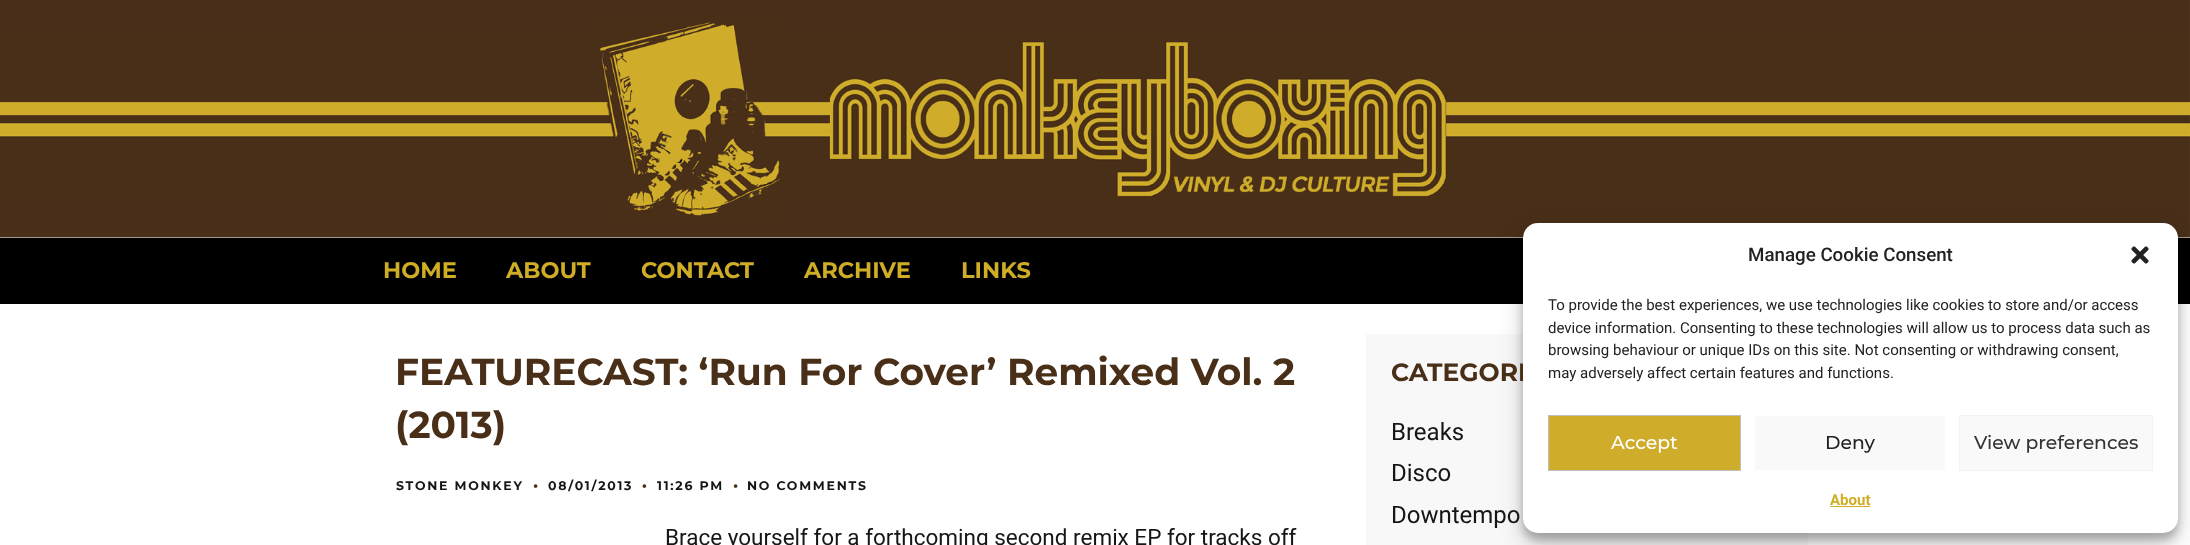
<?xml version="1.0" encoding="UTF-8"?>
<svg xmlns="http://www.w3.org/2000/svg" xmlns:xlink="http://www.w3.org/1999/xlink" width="2190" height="545">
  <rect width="100%" height="100%" fill="#ffffff" />
  <image x="0" y="0" width="2190" height="238" xlink:href="image1.png" />
  <rect y="238" width="2190" height="66" fill="#000000" />
  <rect x="1366" y="334" width="442" height="211" fill="#f8f8f8" />
  <rect x="1523" y="230" width="655" height="310" rx="15" fill="#000000" fill-opacity="0.23" filter="blur(4px)" />
  <rect x="1523" y="235" width="655" height="310" rx="15" fill="#000000" fill-opacity="0.19" filter="blur(12.5px)" />
  <image x="533" y="484" width="5" height="4" xlink:href="image3.png" />
  <image x="642" y="484" width="5" height="4" xlink:href="image4.png" />
  <image x="733" y="484" width="5" height="4" xlink:href="image3.png" />
  <text x="383" y="278" style="font-family: Montserrat; font-size: 22.5px; font-weight: bold; fill: #cfad25">HOME</text>
  <text x="506" y="278" style="font-family: Montserrat; font-size: 22.5px; font-weight: bold; fill: #cfad25">ABOUT</text>
  <text x="641" y="278" style="font-family: Montserrat; font-size: 22.5px; font-weight: bold; fill: #cfad25">CONTACT</text>
  <text x="804" y="278" style="font-family: Montserrat; font-size: 22.5px; font-weight: bold; fill: #cfad25">ARCHIVE</text>
  <text x="961" y="278" style="font-family: Montserrat; font-size: 22.5px; font-weight: bold; fill: #cfad25">LINKS</text>
  <text x="395" y="385" style="font-family: Montserrat; font-size: 37.5px; font-weight: bold; fill: #492f18">FEATURECAST: ‘Run For Cover’ Remixed Vol. 2</text>
  <text x="395" y="438" style="font-family: Montserrat; font-size: 37.5px; font-weight: bold; fill: #492f18">(2013)</text>
  <text x="396" y="490" style="font-family: Montserrat; font-size: 12.5px; font-weight: bold; letter-spacing: 1.75px; fill: #161616">STONE MONKEY</text>
  <text x="548" y="490" style="font-family: Montserrat; font-size: 12.5px; font-weight: bold; letter-spacing: 1.75px; fill: #161616">08/01/2013</text>
  <text x="657" y="490" style="font-family: Montserrat; font-size: 12.5px; font-weight: bold; letter-spacing: 1.75px; fill: #161616">11:26 PM</text>
  <text x="747" y="490" style="font-family: Montserrat; font-size: 12.5px; font-weight: bold; letter-spacing: 1.75px; fill: #161616">NO COMMENTS</text>
  <text x="665" y="545" style="font-family: Roboto; font-size: 22.5px; fill: #161616">Brace yourself for a forthcoming second remix EP for tracks off</text>
  <text x="1391" y="381" style="font-family: Montserrat; font-size: 25px; font-weight: bold; fill: #492f18">CATEGORI</text>
  <rect x="1523" y="223" width="655" height="310" rx="15" fill="#ffffff" />
  <text x="1548" y="378" style="font-family: Roboto; font-size: 15px; fill: #222222">may adversely affect certain features and functions.</text>
  <text x="1548" y="355" style="font-family: Roboto; font-size: 15px; fill: #222222">browsing behaviour or unique IDs on this site. Not consenting or withdrawing consent,</text>
  <text x="1548" y="333" style="font-family: Roboto; font-size: 15px; fill: #222222">device information. Consenting to these technologies will allow us to process data such as</text>
  <text x="1548" y="310" style="font-family: Roboto; font-size: 15px; fill: #222222">To provide the best experiences, we use technologies like cookies to store and/or access</text>
  <image x="2131" y="246" width="18" height="18" xlink:href="image2.png" />
  <text x="1830" y="505" style="font-family: Roboto; font-size: 15px; font-weight: bold; fill: #cfad25">About</text>
  <rect x="1830" y="506" width="40" height="1" fill="#cfac2a" />
  <rect x="1959.5" y="415.5" width="193" height="55" fill="#f9f9f9" stroke="#f2f2f2" />
  <text x="1974" y="449" style="font-family: Montserrat; font-size: 18.75px; font-weight: 500; fill: #333333">View preferences</text>
  <rect x="1755" y="416" width="190" height="54" fill="#f9f9f9" />
  <text x="1825" y="449" style="font-family: Montserrat; font-size: 18.75px; font-weight: 500; fill: #222222">Deny</text>
  <rect x="1548.5" y="415.5" width="192" height="55" fill="#cfac2a" stroke="#bfbfbf" />
  <text x="1611" y="449" style="font-family: Montserrat; font-size: 18.75px; font-weight: 500; fill: #ffffff">Accept</text>
  <text x="1748" y="261" style="font-family: Roboto; font-size: 18.75px; font-weight: 500; fill: #222222">Manage Cookie Consent</text>
  <text x="1391" y="440" style="font-family: Roboto; font-size: 24px; fill: #161616">Breaks</text>
  <text x="1391" y="481" style="font-family: Roboto; font-size: 24px; fill: #161616">Disco</text>
  <text x="1391" y="523" style="font-family: Roboto; font-size: 24px; fill: #161616">Downtempo</text>
</svg>
